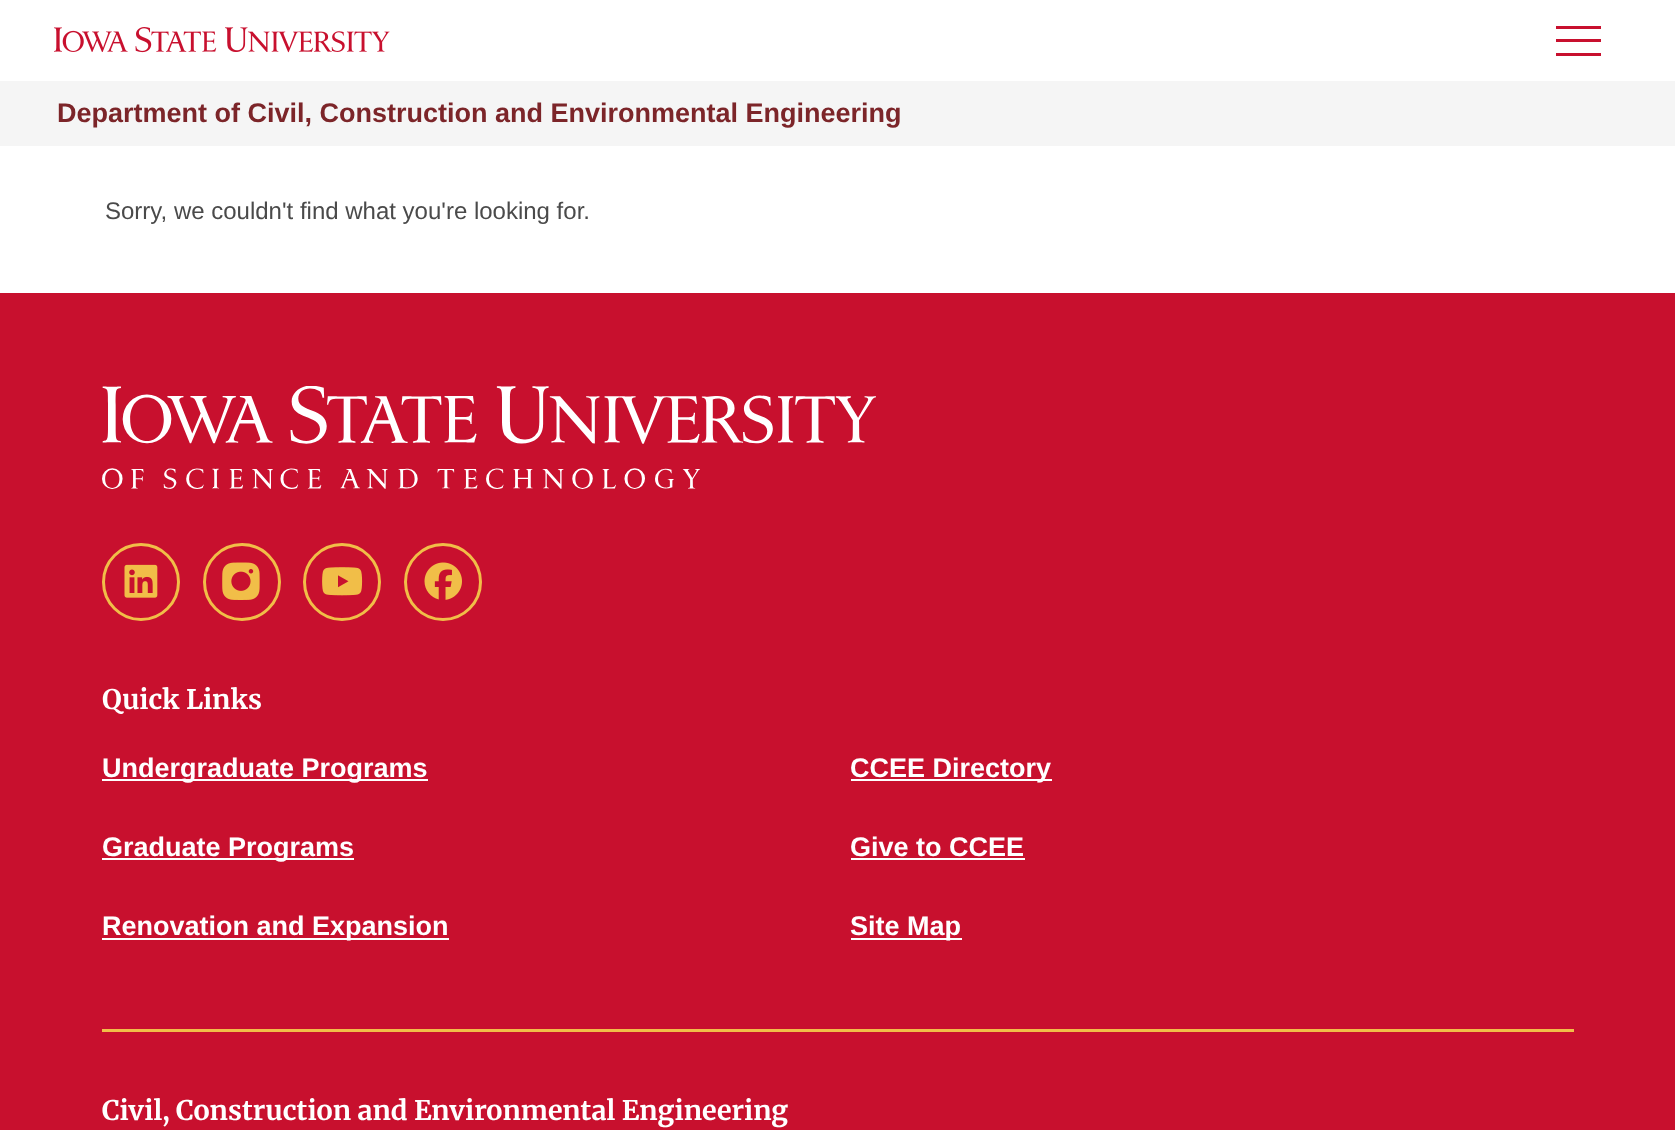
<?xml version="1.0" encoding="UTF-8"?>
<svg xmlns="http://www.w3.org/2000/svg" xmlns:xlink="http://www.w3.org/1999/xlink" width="1675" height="1130">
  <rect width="100%" height="100%" fill="#ffffff" />
  <rect x="1556" y="26" width="45" height="3" fill="#c8102e" />
  <rect x="1556" y="39" width="45" height="3" fill="#c8102e" />
  <rect x="1556" y="53" width="45" height="3" fill="#c8102e" />
  <image x="54" y="27" width="336" height="26" xlink:href="image1.png" />
  <rect y="81" width="1675" height="65" fill="#f5f5f5" />
  <rect y="293" width="1675" height="837" fill="#c8102e" />
  <image x="102" y="386" width="774" height="103" xlink:href="image2.png" />
  <circle cx="141" cy="582" r="37.5" fill="none" stroke="#f1be48" stroke-width="3" />
  <image x="124" y="564" width="34" height="34" xlink:href="image3.png" />
  <circle cx="242" cy="582" r="37.5" fill="none" stroke="#f1be48" stroke-width="3" />
  <image x="222" y="562" width="38" height="38" xlink:href="image4.png" />
  <circle cx="342" cy="582" r="37.5" fill="none" stroke="#f1be48" stroke-width="3" />
  <image x="322" y="567" width="41" height="29" xlink:href="image5.png" />
  <circle cx="443" cy="582" r="37.5" fill="none" stroke="#f1be48" stroke-width="3" />
  <image x="424" y="562" width="38" height="38" xlink:href="image6.png" />
  <rect x="102" y="1029" width="1472" height="3" fill="#f1be48" />
  <rect x="102" y="779" width="326" height="2" fill="#ffffff" />
  <rect x="851" y="779" width="201" height="2" fill="#ffffff" />
  <rect x="102" y="858" width="252" height="2" fill="#ffffff" />
  <rect x="851" y="858" width="174" height="2" fill="#ffffff" />
  <rect x="102" y="938" width="347" height="2" fill="#ffffff" />
  <rect x="851" y="938" width="111" height="2" fill="#ffffff" />
  <text x="57" y="122" style="font-family: Liberation Sans; font-size: 27px; font-weight: bold; fill: #7c2529">Department of Civil, Construction and Environmental Engineering</text>
  <text x="105" y="219" style="font-family: Liberation Sans; font-size: 24px; fill: #4a4a4a">Sorry, we couldn't find what you're looking for.</text>
  <text x="102" y="709" style="font-family: Merriweather; font-size: 27px; font-weight: bold; fill: #ffffff">Quick Links</text>
  <text x="102" y="777" style="font-family: Liberation Sans; font-size: 27px; font-weight: bold; fill: #ffffff">Undergraduate Programs</text>
  <text x="850" y="777" style="font-family: Liberation Sans; font-size: 27px; font-weight: bold; fill: #ffffff">CCEE Directory</text>
  <text x="102" y="856" style="font-family: Liberation Sans; font-size: 27px; font-weight: bold; fill: #ffffff">Graduate Programs</text>
  <text x="850" y="856" style="font-family: Liberation Sans; font-size: 27px; font-weight: bold; fill: #ffffff">Give to CCEE</text>
  <text x="102" y="935" style="font-family: Liberation Sans; font-size: 27px; font-weight: bold; fill: #ffffff">Renovation and Expansion</text>
  <text x="850" y="935" style="font-family: Liberation Sans; font-size: 27px; font-weight: bold; fill: #ffffff">Site Map</text>
  <text x="102" y="1120" style="font-family: Merriweather; font-size: 27px; font-weight: bold; fill: #ffffff">Civil, Construction and Environmental Engineering</text>
</svg>
